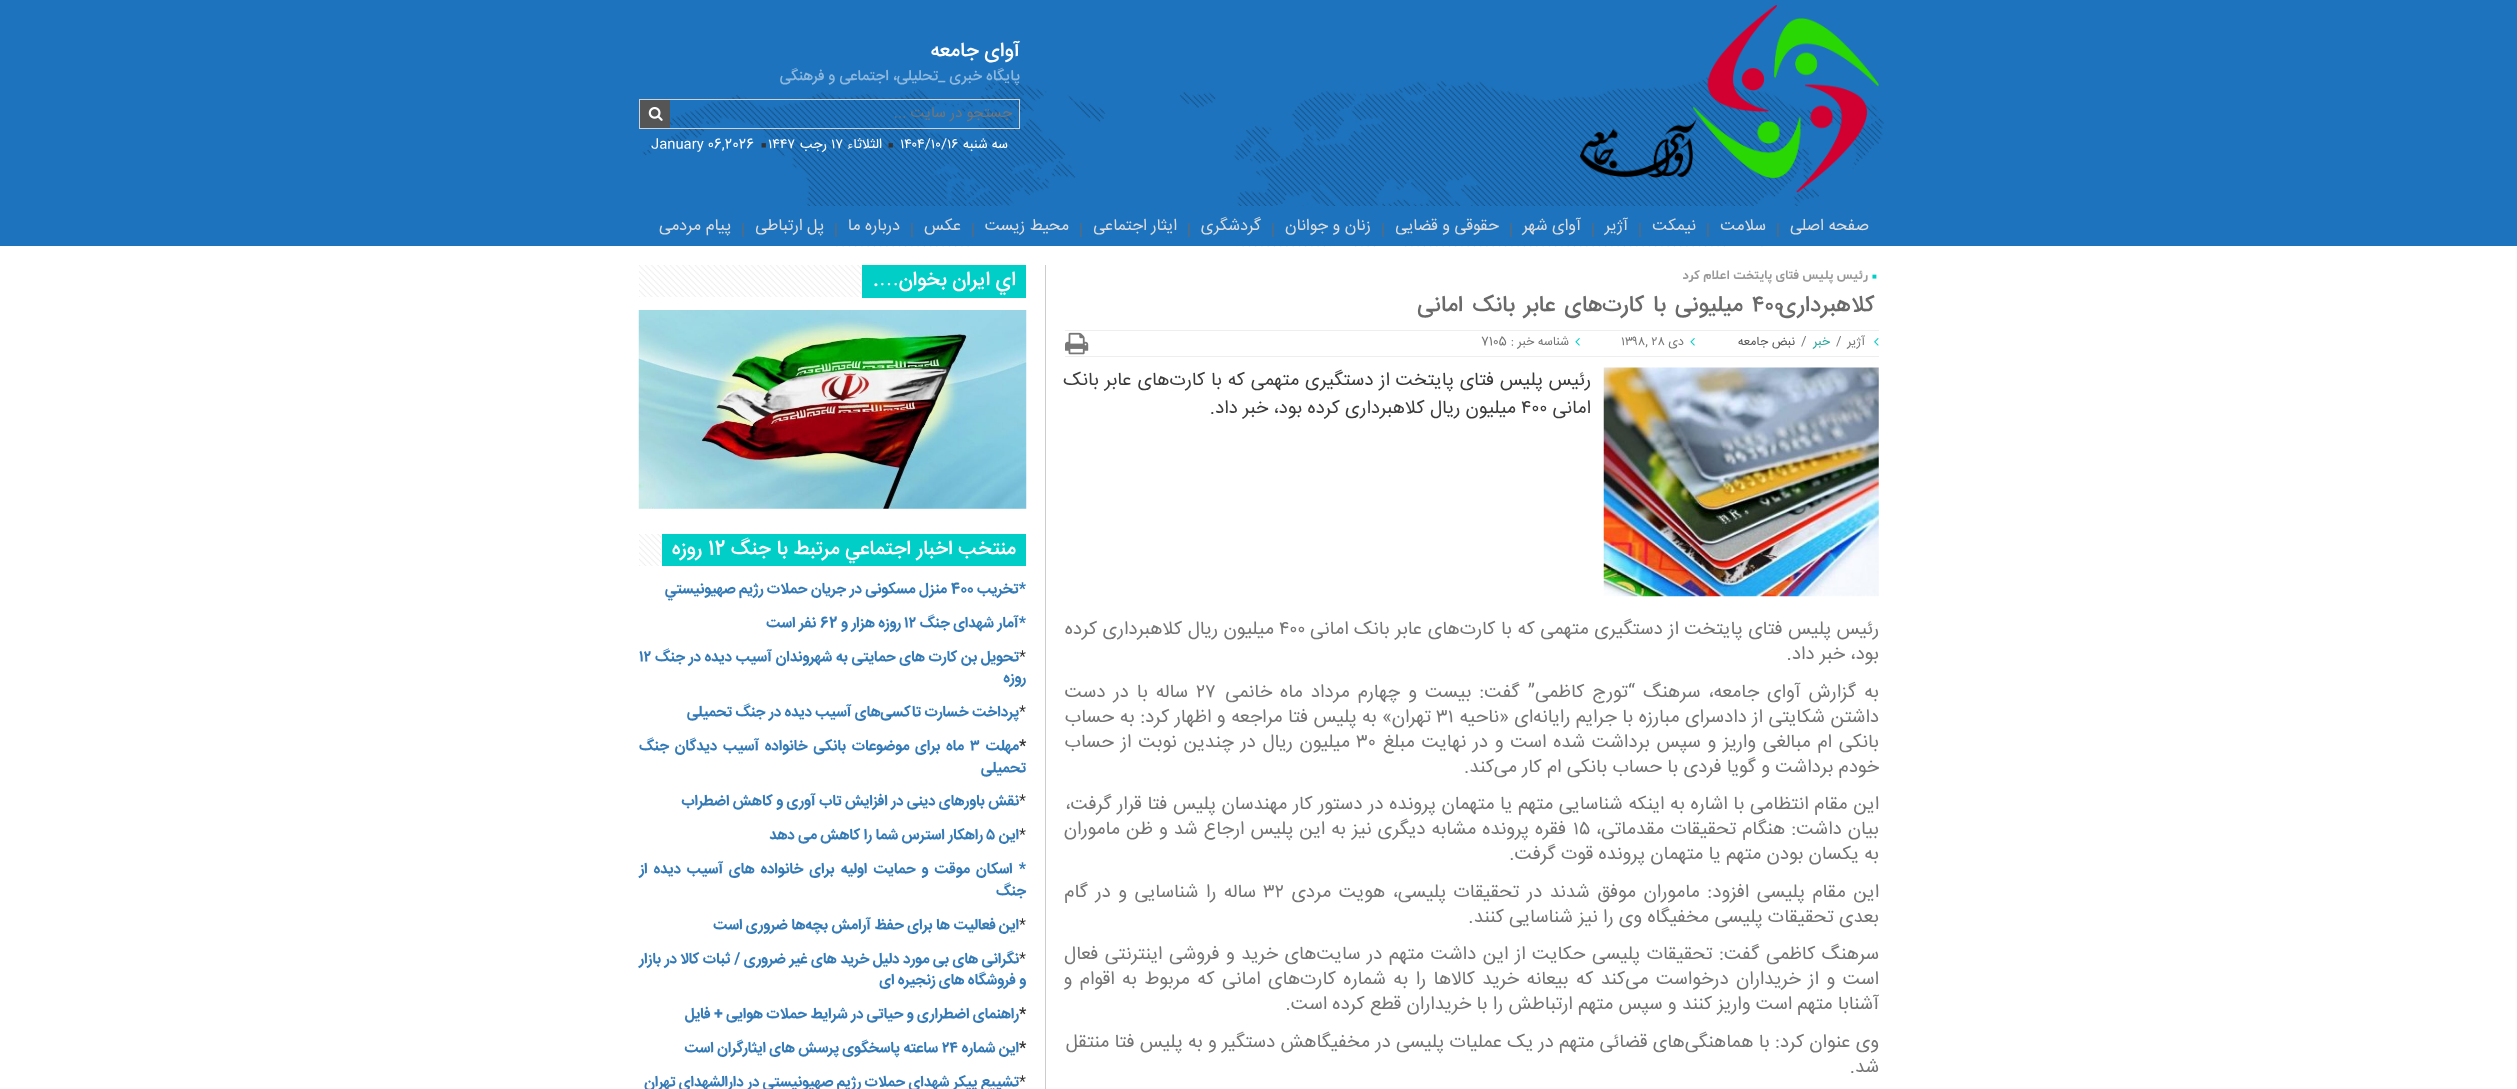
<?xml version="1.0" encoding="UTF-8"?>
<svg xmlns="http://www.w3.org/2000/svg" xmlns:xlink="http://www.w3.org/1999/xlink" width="2517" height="1089">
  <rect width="100%" height="100%" fill="#ffffff" />
  <rect width="2517" height="206" fill="#1e73be" />
  <image x="642" y="77" width="1242" height="170" xlink:href="image1.png" />
  <image x="1580" y="5" width="299" height="188" xlink:href="image2.png" />
  <rect x="639.5" y="99.5" width="380" height="29" fill="none" stroke="#d1d1d1" />
  <rect x="640" y="100" width="30" height="28" fill="#555555" />
  <image x="648" y="107" width="15" height="14" xlink:href="image3.png" />
  <rect y="206" width="2517" height="40" fill="#1e73be" />
  <rect x="1065" y="330" width="814" height="1" fill="#eeeeee" />
  <rect x="1065" y="356" width="814" height="1" fill="#eeeeee" />
  <image x="1874" y="338" width="5" height="8" xlink:href="image4.png" />
  <image x="1690" y="338" width="5" height="8" xlink:href="image5.png" />
  <image x="1575" y="338" width="5" height="8" xlink:href="image5.png" />
  <image x="1065" y="332" width="24" height="23" xlink:href="image6.png" />
  <image x="1603" y="367" width="276" height="230" xlink:href="image7.png" />
  <rect x="1045" y="265" width="1" height="824" fill="#cccccc" />
  <image x="639" y="265" width="222" height="32" xlink:href="image8.png" />
  <rect x="862" y="265" width="164" height="33" fill="#00cec7" />
  <image x="638" y="310" width="389" height="199" xlink:href="image9.png" />
  <image x="639" y="534" width="22" height="32" xlink:href="image10.png" />
  <rect x="662" y="534" width="364" height="32" fill="#00cec7" />
  <text x="1020" y="56" style="font-family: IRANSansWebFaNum; font-size: 20px; font-weight: 500; direction: rtl; fill: #ffffff">آوای جامعه</text>
  <text x="1020" y="80" style="font-family: IRANSansWebFaNum; font-size: 15px; font-weight: 500; direction: rtl; fill: #8eb9de">پایگاه خبری _تحلیلی، اجتماعی و فرهنگی</text>
  <text x="1012" y="117" style="font-family: IRANSansWebFaNum; font-size: 15px; direction: rtl; fill: #757575">جستجو در سایت ...</text>
  <text x="1008" y="148" style="font-family: IRANSansWebFaNum; font-size: 13.75px; direction: rtl; fill: #ffffff">سه شنبه</text>
  <text x="900" y="148" style="font-family: IRANSansWebFaNum; font-size: 13.75px; fill: #ffffff">۱۴۰۴/۱۰/۱۶</text>
  <text x="888" y="148" style="font-family: Liberation Serif; font-size: 9px; fill: #333333">■</text>
  <text x="882" y="148" style="font-family: IRANSansWebFaNum; font-size: 13.75px; direction: rtl; fill: #ffffff">الثلاثاء</text>
  <text x="831" y="148" style="font-family: IRANSansWebFaNum; font-size: 13.75px; fill: #ffffff">۱۷</text>
  <text x="827" y="148" style="font-family: IRANSansWebFaNum; font-size: 13.75px; direction: rtl; fill: #ffffff">رجب</text>
  <text x="768" y="148" style="font-family: IRANSansWebFaNum; font-size: 13.75px; fill: #ffffff">۱۴۴۷</text>
  <text x="761" y="148" style="font-family: Liberation Serif; font-size: 9px; fill: #333333">■</text>
  <text x="651" y="148" style="font-family: IRANSansWebFaNum; font-size: 13.75px; fill: #ffffff">January 06,2026</text>
  <text x="1869" y="230" style="font-family: IRANSansWebFaNum; font-size: 16.25px; direction: rtl; fill: #dddddd">صفحه اصلی</text>
  <text x="1776" y="234" style="font-family: IRANSansWebFaNum; font-size: 15px; fill: #6a6a6a">|</text>
  <text x="1766" y="230" style="font-family: IRANSansWebFaNum; font-size: 16.25px; direction: rtl; fill: #dddddd">سلامت</text>
  <text x="1706" y="234" style="font-family: IRANSansWebFaNum; font-size: 15px; fill: #6a6a6a">|</text>
  <text x="1696" y="230" style="font-family: IRANSansWebFaNum; font-size: 16.25px; direction: rtl; fill: #dddddd">نیمکت</text>
  <text x="1638" y="234" style="font-family: IRANSansWebFaNum; font-size: 15px; fill: #6a6a6a">|</text>
  <text x="1628" y="230" style="font-family: IRANSansWebFaNum; font-size: 16.25px; direction: rtl; fill: #dddddd">آژیر</text>
  <text x="1591" y="234" style="font-family: IRANSansWebFaNum; font-size: 15px; fill: #6a6a6a">|</text>
  <text x="1581" y="230" style="font-family: IRANSansWebFaNum; font-size: 16.25px; direction: rtl; fill: #dddddd">آوای شهر</text>
  <text x="1509" y="234" style="font-family: IRANSansWebFaNum; font-size: 15px; fill: #6a6a6a">|</text>
  <text x="1499" y="230" style="font-family: IRANSansWebFaNum; font-size: 16.25px; direction: rtl; fill: #dddddd">حقوقی و قضایی</text>
  <text x="1381" y="234" style="font-family: IRANSansWebFaNum; font-size: 15px; fill: #6a6a6a">|</text>
  <text x="1371" y="230" style="font-family: IRANSansWebFaNum; font-size: 16.25px; direction: rtl; fill: #dddddd">زنان و جوانان</text>
  <text x="1271" y="234" style="font-family: IRANSansWebFaNum; font-size: 15px; fill: #6a6a6a">|</text>
  <text x="1261" y="230" style="font-family: IRANSansWebFaNum; font-size: 16.25px; direction: rtl; fill: #dddddd">گردشگری</text>
  <text x="1187" y="234" style="font-family: IRANSansWebFaNum; font-size: 15px; fill: #6a6a6a">|</text>
  <text x="1177" y="230" style="font-family: IRANSansWebFaNum; font-size: 16.25px; direction: rtl; fill: #dddddd">ایثار اجتماعی</text>
  <text x="1079" y="234" style="font-family: IRANSansWebFaNum; font-size: 15px; fill: #6a6a6a">|</text>
  <text x="1069" y="230" style="font-family: IRANSansWebFaNum; font-size: 16.25px; direction: rtl; fill: #dddddd">محیط زیست</text>
  <text x="971" y="234" style="font-family: IRANSansWebFaNum; font-size: 15px; fill: #6a6a6a">|</text>
  <text x="961" y="230" style="font-family: IRANSansWebFaNum; font-size: 16.25px; direction: rtl; fill: #dddddd">عکس</text>
  <text x="910" y="234" style="font-family: IRANSansWebFaNum; font-size: 15px; fill: #6a6a6a">|</text>
  <text x="900" y="230" style="font-family: IRANSansWebFaNum; font-size: 16.25px; direction: rtl; fill: #dddddd">درباره ما</text>
  <text x="834" y="234" style="font-family: IRANSansWebFaNum; font-size: 15px; fill: #6a6a6a">|</text>
  <text x="824" y="230" style="font-family: IRANSansWebFaNum; font-size: 16.25px; direction: rtl; fill: #dddddd">پل ارتباطی</text>
  <text x="741" y="234" style="font-family: IRANSansWebFaNum; font-size: 15px; fill: #6a6a6a">|</text>
  <text x="731" y="230" style="font-family: IRANSansWebFaNum; font-size: 16.25px; direction: rtl; fill: #dddddd">پیام مردمی</text>
  <text x="1872" y="279" style="font-family: Liberation Serif; font-size: 8px; fill: #00cec7">■</text>
  <text x="1868" y="279" style="font-family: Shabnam; font-size: 12.5px; font-weight: bold; direction: rtl; fill: #999999">رئیس پلیس فتای پایتخت اعلام کرد</text>
  <text x="1874" y="311" style="font-family: IRANSansWebFaNum; font-size: 22.5px; font-weight: 500; letter-spacing: -0.5px; direction: rtl; fill: #6a6a6a">کلاهبرداری</text>
  <text x="1752" y="311" style="font-family: IRANSansWebFaNum; font-size: 22.5px; font-weight: 500; letter-spacing: -0.5px; fill: #6a6a6a">۴۰۰</text>
  <text x="1743" y="311" word-spacing="3" style="font-family: IRANSansWebFaNum; font-size: 22.5px; font-weight: 500; letter-spacing: -0.5px; direction: rtl; fill: #6a6a6a">میلیونی با کارت‌های عابر بانک امانی</text>
  <text x="1865" y="345" style="font-family: IRANSansWebFaNum; font-size: 12.5px; direction: rtl; fill: #757575">آژیر</text>
  <text x="1836" y="345" style="font-family: IRANSansWebFaNum; font-size: 12.5px; fill: #757575">/</text>
  <text x="1830" y="345" style="font-family: IRANSansWebFaNum; font-size: 12.5px; direction: rtl; fill: #26a69a">خبر</text>
  <text x="1801" y="345" style="font-family: IRANSansWebFaNum; font-size: 12.5px; fill: #757575">/</text>
  <text x="1795" y="345" style="font-family: IRANSansWebFaNum; font-size: 12.5px; direction: rtl; fill: #555555">نبض جامعه</text>
  <text x="1684" y="345" style="font-family: IRANSansWebFaNum; font-size: 12.5px; direction: rtl; fill: #757575">دی</text>
  <text x="1621" y="345" style="font-family: IRANSansWebFaNum; font-size: 12.5px; fill: #757575">۱۳۹۸, ۲۸</text>
  <text x="1569" y="345" style="font-family: IRANSansWebFaNum; font-size: 12.5px; direction: rtl; fill: #757575">شناسه خبر :</text>
  <text x="1481" y="345" style="font-family: IRANSansWebFaNum; font-size: 12.5px; fill: #757575">7105</text>
  <text x="1591" y="385" word-spacing="0.5" style="font-family: IRANSansWebFaNum; font-size: 18.75px; direction: rtl; fill: #3b3b3b">رئیس پلیس فتای پایتخت از دستگیری متهمی که با کارت‌های عابر بانک</text>
  <text x="1591" y="413" style="font-family: IRANSansWebFaNum; font-size: 18.75px; direction: rtl; fill: #3b3b3b">امانی</text>
  <text x="1521" y="413" style="font-family: IRANSansWebFaNum; font-size: 18.75px; fill: #3b3b3b">۴۰۰</text>
  <text x="1516" y="413" style="font-family: IRANSansWebFaNum; font-size: 18.75px; direction: rtl; fill: #3b3b3b">میلیون ریال کلاهبرداری کرده بود، خبر داد.</text>
  <text x="1879" y="634" word-spacing="0.25" style="font-family: IRANSansWebFaNum; font-size: 18.75px; direction: rtl; fill: #757575">رئیس پلیس فتای پایتخت از دستگیری متهمی که با کارت‌های عابر بانک امانی</text>
  <text x="1279" y="634" style="font-family: IRANSansWebFaNum; font-size: 18.75px; fill: #757575">۴۰۰</text>
  <text x="1274" y="634" word-spacing="0.25" style="font-family: IRANSansWebFaNum; font-size: 18.75px; direction: rtl; fill: #757575">میلیون ریال کلاهبرداری کرده</text>
  <text x="1879" y="659" style="font-family: IRANSansWebFaNum; font-size: 18.75px; direction: rtl; fill: #757575">بود، خبر داد.</text>
  <text x="1879" y="697" word-spacing="2.75" style="font-family: IRANSansWebFaNum; font-size: 18.75px; direction: rtl; fill: #757575">به گزارش آوای جامعه، سرهنگ “تورج کاظمی” گفت: بیست و چهارم مرداد ماه خانمی</text>
  <text x="1196" y="697" style="font-family: IRANSansWebFaNum; font-size: 18.75px; fill: #757575">۲۷</text>
  <text x="1188" y="697" word-spacing="2.75" style="font-family: IRANSansWebFaNum; font-size: 18.75px; direction: rtl; fill: #757575">ساله با در دست</text>
  <text x="1879" y="722" word-spacing="0.25" style="font-family: IRANSansWebFaNum; font-size: 18.75px; direction: rtl; fill: #757575">داشتن شکایتی از دادسرای مبارزه با جرایم رایانه‌ای «ناحیه</text>
  <text x="1436" y="722" style="font-family: IRANSansWebFaNum; font-size: 18.75px; fill: #757575">۳۱</text>
  <text x="1431" y="722" word-spacing="0.25" style="font-family: IRANSansWebFaNum; font-size: 18.75px; direction: rtl; fill: #757575">تهران» به پلیس فتا مراجعه و اظهار کرد: به حساب</text>
  <text x="1879" y="747" word-spacing="1.4" style="font-family: IRANSansWebFaNum; font-size: 18.75px; direction: rtl; fill: #757575">بانکی ام مبالغی واریز و سپس برداشت شده است و در نهایت مبلغ</text>
  <text x="1356" y="747" style="font-family: IRANSansWebFaNum; font-size: 18.75px; fill: #757575">۳۰</text>
  <text x="1350" y="747" word-spacing="1.5" style="font-family: IRANSansWebFaNum; font-size: 18.75px; direction: rtl; fill: #757575">میلیون ریال در چندین نوبت از حساب</text>
  <text x="1879" y="772" style="font-family: IRANSansWebFaNum; font-size: 18.75px; direction: rtl; fill: #757575">خودم برداشت و گویا فردی با حساب بانکی ام کار می‌کند.</text>
  <text x="1879" y="809" word-spacing="0.4" style="font-family: IRANSansWebFaNum; font-size: 18.75px; direction: rtl; fill: #757575">این مقام انتظامی با اشاره به اینکه شناسایی متهم یا متهمان پرونده در دستور کار مهندسان پلیس فتا قرار گرفت،</text>
  <text x="1879" y="834" word-spacing="0.75" style="font-family: IRANSansWebFaNum; font-size: 18.75px; direction: rtl; fill: #757575">بیان داشت: هنگام تحقیقات مقدماتی،</text>
  <text x="1573" y="834" style="font-family: IRANSansWebFaNum; font-size: 18.75px; fill: #757575">۱۵</text>
  <text x="1566" y="834" word-spacing="0.75" style="font-family: IRANSansWebFaNum; font-size: 18.75px; direction: rtl; fill: #757575">فقره پرونده مشابه دیگری نیز به این پلیس ارجاع شد و ظن ماموران</text>
  <text x="1879" y="859" style="font-family: IRANSansWebFaNum; font-size: 18.75px; direction: rtl; fill: #757575">به یکسان بودن متهم یا متهمان پرونده قوت گرفت.</text>
  <text x="1879" y="897" word-spacing="2.25" style="font-family: IRANSansWebFaNum; font-size: 18.75px; direction: rtl; fill: #757575">این مقام پلیسی افزود: ماموران موفق شدند در تحقیقات پلیسی، هویت مردی</text>
  <text x="1263" y="897" style="font-family: IRANSansWebFaNum; font-size: 18.75px; fill: #757575">۳۲</text>
  <text x="1256" y="897" word-spacing="2.25" style="font-family: IRANSansWebFaNum; font-size: 18.75px; direction: rtl; fill: #757575">ساله را شناسایی و در گام</text>
  <text x="1879" y="922" style="font-family: IRANSansWebFaNum; font-size: 18.75px; direction: rtl; fill: #757575">بعدی تحقیقات پلیسی مخفیگاه وی را نیز شناسایی کنند.</text>
  <text x="1879" y="959" word-spacing="1.25" style="font-family: IRANSansWebFaNum; font-size: 18.75px; direction: rtl; fill: #757575">سرهنگ کاظمی گفت: تحقیقات پلیسی حکایت از این داشت متهم در سایت‌های خرید و فروشی اینترنتی فعال</text>
  <text x="1879" y="984" word-spacing="2.25" style="font-family: IRANSansWebFaNum; font-size: 18.75px; direction: rtl; fill: #757575">است و از خریداران درخواست می‌کند که بیعانه خرید کالا‌ها را به شماره کارت‌های امانی که مربوط به اقوام و</text>
  <text x="1879" y="1009" style="font-family: IRANSansWebFaNum; font-size: 18.75px; direction: rtl; fill: #757575">آشنابا متهم است واریز کنند و سپس متهم ارتباطش را با خریداران قطع کرده است.</text>
  <text x="1879" y="1047" style="font-family: IRANSansWebFaNum; font-size: 18.75px; direction: rtl; fill: #757575">وی عنوان کرد: با هماهنگی‌های قضائی متهم در یک عملیات پلیسی در مخفیگاهش دستگیر و به پلیس فتا منتقل</text>
  <text x="1879" y="1072" style="font-family: IRANSansWebFaNum; font-size: 18.75px; direction: rtl; fill: #757575">شد.</text>
  <text x="1016" y="285" style="font-family: IRANSansWebFaNum; font-size: 20px; font-weight: 500; direction: rtl; fill: #ffffff">اي ايران بخوان</text>
  <text x="899" y="285" style="font-family: Liberation Serif; font-size: 20px; direction: rtl; fill: #ffffff">…</text>
  <text x="879" y="285" style="font-family: IRANSansWebFaNum; font-size: 20px; font-weight: 500; direction: rtl; fill: #ffffff">.</text>
  <text x="1016" y="554" style="font-family: IRANSansWebFaNum; font-size: 20px; font-weight: 500; direction: rtl; fill: #ffffff">منتخب اخبار اجتماعي مرتبط با جنگ</text>
  <text x="708" y="554" style="font-family: IRANSansWebFaNum; font-size: 20px; font-weight: 500; fill: #ffffff">12</text>
  <text x="702" y="554" style="font-family: IRANSansWebFaNum; font-size: 20px; font-weight: 500; direction: rtl; fill: #ffffff">روزه</text>
  <text x="1026" y="593" style="font-family: IRANSansWebFaNum; font-size: 15px; font-weight: bold; direction: rtl; fill: #337ab7">*تخريب</text>
  <text x="951" y="593" style="font-family: IRANSansWebFaNum; font-size: 15px; font-weight: bold; fill: #337ab7">400</text>
  <text x="947" y="593" style="font-family: IRANSansWebFaNum; font-size: 15px; font-weight: bold; direction: rtl; fill: #337ab7">منزل مسکونی در جريان حملات رژيم صهيونيستي</text>
  <text x="1026" y="627" style="font-family: IRANSansWebFaNum; font-size: 15px; font-weight: bold; direction: rtl; fill: #337ab7">*آمار شهدای جنگ</text>
  <text x="904" y="627" style="font-family: IRANSansWebFaNum; font-size: 15px; font-weight: bold; fill: #337ab7">۱۲</text>
  <text x="901" y="627" style="font-family: IRANSansWebFaNum; font-size: 15px; font-weight: bold; direction: rtl; fill: #337ab7">روزه هزار و</text>
  <text x="820" y="627" style="font-family: IRANSansWebFaNum; font-size: 15px; font-weight: bold; fill: #337ab7">62</text>
  <text x="816" y="627" style="font-family: IRANSansWebFaNum; font-size: 15px; font-weight: bold; direction: rtl; fill: #337ab7">نفر است</text>
  <text x="1019" y="661" style="font-family: IRANSansWebFaNum; font-size: 15px; fill: #333333">*</text>
  <text x="1019" y="661" word-spacing="0.25" style="font-family: IRANSansWebFaNum; font-size: 15px; font-weight: bold; direction: rtl; fill: #337ab7">تحویل بن‌ کارت های حمایتی به شهروندان آسیب دیده در جنگ</text>
  <text x="639" y="661" style="font-family: IRANSansWebFaNum; font-size: 15px; font-weight: bold; fill: #337ab7">۱۲</text>
  <text x="1026" y="682" style="font-family: IRANSansWebFaNum; font-size: 15px; font-weight: bold; direction: rtl; fill: #337ab7">روزه</text>
  <text x="1019" y="716" style="font-family: IRANSansWebFaNum; font-size: 15px; fill: #333333">*</text>
  <text x="1019" y="716" style="font-family: IRANSansWebFaNum; font-size: 15px; font-weight: bold; direction: rtl; fill: #337ab7">پرداخت خسارت تاکسی‌های آسیب دیده در جنگ تحمیلی</text>
  <text x="1019" y="750" style="font-family: IRANSansWebFaNum; font-size: 15px; font-weight: bold; fill: #333333">*</text>
  <text x="1019" y="750" style="font-family: IRANSansWebFaNum; font-size: 15px; font-weight: bold; direction: rtl; fill: #337ab7">مهلت</text>
  <text x="970" y="750" style="font-family: IRANSansWebFaNum; font-size: 15px; font-weight: bold; fill: #337ab7">۳</text>
  <text x="964" y="750" word-spacing="2.25" style="font-family: IRANSansWebFaNum; font-size: 15px; font-weight: bold; direction: rtl; fill: #337ab7">ماه برای موضوعات بانکی خانواده آسیب دیدگان جنگ</text>
  <text x="1026" y="772" style="font-family: IRANSansWebFaNum; font-size: 15px; font-weight: bold; direction: rtl; fill: #337ab7">تحمیلی</text>
  <text x="1019" y="805" style="font-family: IRANSansWebFaNum; font-size: 15px; fill: #333333">*</text>
  <text x="1019" y="805" style="font-family: IRANSansWebFaNum; font-size: 15px; font-weight: bold; direction: rtl; fill: #337ab7">نقش باورهای دینی در افزایش تاب آوری و کاهش اضطراب</text>
  <text x="1019" y="839" style="font-family: IRANSansWebFaNum; font-size: 15px; fill: #333333">*</text>
  <text x="1019" y="839" style="font-family: IRANSansWebFaNum; font-size: 15px; font-weight: bold; direction: rtl; fill: #337ab7">این</text>
  <text x="986" y="839" style="font-family: IRANSansWebFaNum; font-size: 15px; font-weight: bold; fill: #337ab7">۵</text>
  <text x="983" y="839" style="font-family: IRANSansWebFaNum; font-size: 15px; font-weight: bold; direction: rtl; fill: #337ab7">راهکار استرس شما را کاهش می دهد</text>
  <text x="1026" y="873" word-spacing="2.5" style="font-family: IRANSansWebFaNum; font-size: 15px; font-weight: bold; direction: rtl; fill: #337ab7">* اسکان موقت و حمایت اولیه برای خانواده های آسیب‌ دیده از</text>
  <text x="1026" y="895" style="font-family: IRANSansWebFaNum; font-size: 15px; font-weight: bold; direction: rtl; fill: #337ab7">جنگ</text>
  <text x="1019" y="929" style="font-family: IRANSansWebFaNum; font-size: 15px; fill: #333333">*</text>
  <text x="1019" y="929" style="font-family: IRANSansWebFaNum; font-size: 15px; font-weight: bold; direction: rtl; fill: #337ab7">این فعالیت ها برای حفظ آرامش بچه‌ها ضروری است</text>
  <text x="1019" y="963" style="font-family: IRANSansWebFaNum; font-size: 15px; fill: #333333">*</text>
  <text x="1019" y="963" word-spacing="0.1" style="font-family: IRANSansWebFaNum; font-size: 15px; font-weight: bold; direction: rtl; fill: #337ab7">نگرانی های بی مورد دلیل خرید های غیر ضروری / ثبات کالا در بازار</text>
  <text x="1026" y="984" style="font-family: IRANSansWebFaNum; font-size: 15px; font-weight: bold; direction: rtl; fill: #337ab7">و فروشگاه های زنجیره ای</text>
  <text x="1019" y="1018" style="font-family: IRANSansWebFaNum; font-size: 15px; font-weight: bold; fill: #333333">*</text>
  <text x="1019" y="1018" style="font-family: IRANSansWebFaNum; font-size: 15px; font-weight: bold; direction: rtl; fill: #337ab7">راهنمای اضطراری و حیاتی در شرایط حملات هوایی + فایل</text>
  <text x="1019" y="1052" style="font-family: IRANSansWebFaNum; font-size: 15px; font-weight: bold; fill: #333333">*</text>
  <text x="1019" y="1052" style="font-family: IRANSansWebFaNum; font-size: 15px; font-weight: bold; direction: rtl; fill: #337ab7">این شماره</text>
  <text x="942" y="1052" style="font-family: IRANSansWebFaNum; font-size: 15px; font-weight: bold; fill: #337ab7">۲۴</text>
  <text x="938" y="1052" style="font-family: IRANSansWebFaNum; font-size: 15px; font-weight: bold; direction: rtl; fill: #337ab7">ساعته پاسخگوی پرسش های ایثارگران است</text>
  <text x="1019" y="1086" style="font-family: IRANSansWebFaNum; font-size: 15px; fill: #333333">*</text>
  <text x="1019" y="1086" style="font-family: IRANSansWebFaNum; font-size: 15px; font-weight: bold; direction: rtl; fill: #337ab7">تشییع پیکر شهدای حملات رژیم صهیونیستی در دارالشهدای تهران</text>
</svg>
